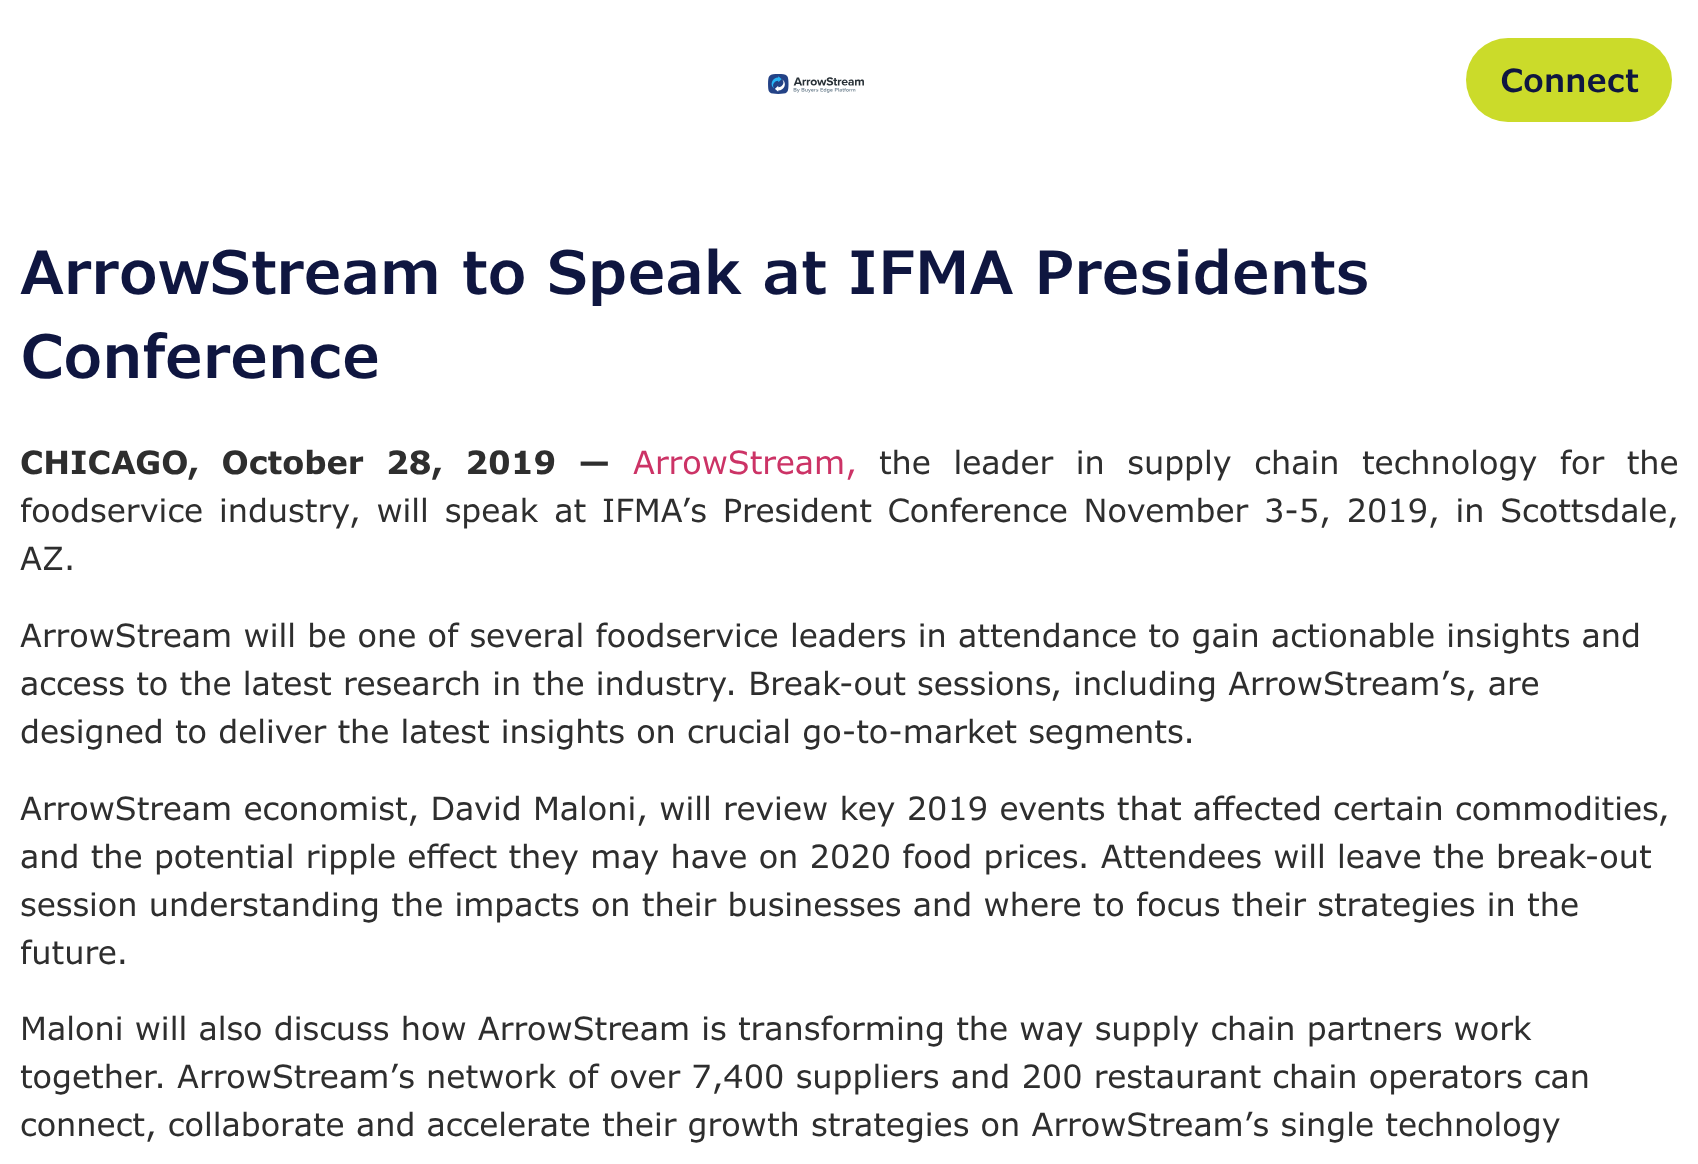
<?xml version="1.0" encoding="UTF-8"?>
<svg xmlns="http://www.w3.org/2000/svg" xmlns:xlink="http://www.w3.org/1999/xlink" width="1698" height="1164">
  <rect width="100%" height="100%" fill="#ffffff" />
  <image x="768" y="74" width="96" height="20" xlink:href="image1.png" />
  <rect x="1466" y="38" width="206" height="84" rx="42" fill="#cbdb2a" />
  <text x="1500" y="92" style="font-family: Verdana; font-size: 32px; font-weight: 600; fill: #0f1640">Connect</text>
  <text x="20" y="294" style="font-family: Verdana; font-size: 60px; font-weight: 600; fill: #0f1640">ArrowStream to Speak at IFMA Presidents</text>
  <text x="20" y="378" style="font-family: Verdana; font-size: 60px; font-weight: 600; fill: #0f1640">Conference</text>
  <text x="20" y="474" word-spacing="11.25" style="font-family: Verdana; font-size: 32px; font-weight: bold; fill: #2e2e2e">CHICAGO, October 28, 2019 —</text>
  <text x="633" y="474" style="font-family: Verdana; font-size: 32px; fill: #cc3366">ArrowStream,</text>
  <text x="879" y="474" word-spacing="11.25" style="font-family: Verdana; font-size: 32px; fill: #2e2e2e">the leader in supply chain technology for the</text>
  <text x="20" y="522" word-spacing="4.5" style="font-family: Verdana; font-size: 32px; fill: #2e2e2e">foodservice industry, will speak at IFMA’s President Conference November 3-5, 2019, in Scottsdale,</text>
  <text x="20" y="570" style="font-family: Verdana; font-size: 32px; fill: #2e2e2e">AZ.</text>
  <text x="20" y="647" style="font-family: Verdana; font-size: 32px; fill: #2e2e2e">ArrowStream will be one of several foodservice leaders in attendance to gain actionable insights and</text>
  <text x="20" y="695" style="font-family: Verdana; font-size: 32px; fill: #2e2e2e">access to the latest research in the industry. Break-out sessions, including ArrowStream’s, are</text>
  <text x="20" y="743" style="font-family: Verdana; font-size: 32px; fill: #2e2e2e">designed to deliver the latest insights on crucial go-to-market segments.</text>
  <text x="20" y="820" style="font-family: Verdana; font-size: 32px; fill: #2e2e2e">ArrowStream economist, David Maloni, will review key 2019 events that affected certain commodities,</text>
  <text x="20" y="868" style="font-family: Verdana; font-size: 32px; fill: #2e2e2e">and the potential ripple effect they may have on 2020 food prices. Attendees will leave the break-out</text>
  <text x="20" y="916" style="font-family: Verdana; font-size: 32px; fill: #2e2e2e">session understanding the impacts on their businesses and where to focus their strategies in the</text>
  <text x="20" y="964" style="font-family: Verdana; font-size: 32px; fill: #2e2e2e">future.</text>
  <text x="20" y="1040" style="font-family: Verdana; font-size: 32px; fill: #2e2e2e">Maloni will also discuss how ArrowStream is transforming the way supply chain partners work</text>
  <text x="20" y="1088" style="font-family: Verdana; font-size: 32px; fill: #2e2e2e">together. ArrowStream’s network of over 7,400 suppliers and 200 restaurant chain operators can</text>
  <text x="20" y="1136" style="font-family: Verdana; font-size: 32px; fill: #2e2e2e">connect, collaborate and accelerate their growth strategies on ArrowStream’s single technology</text>
</svg>
